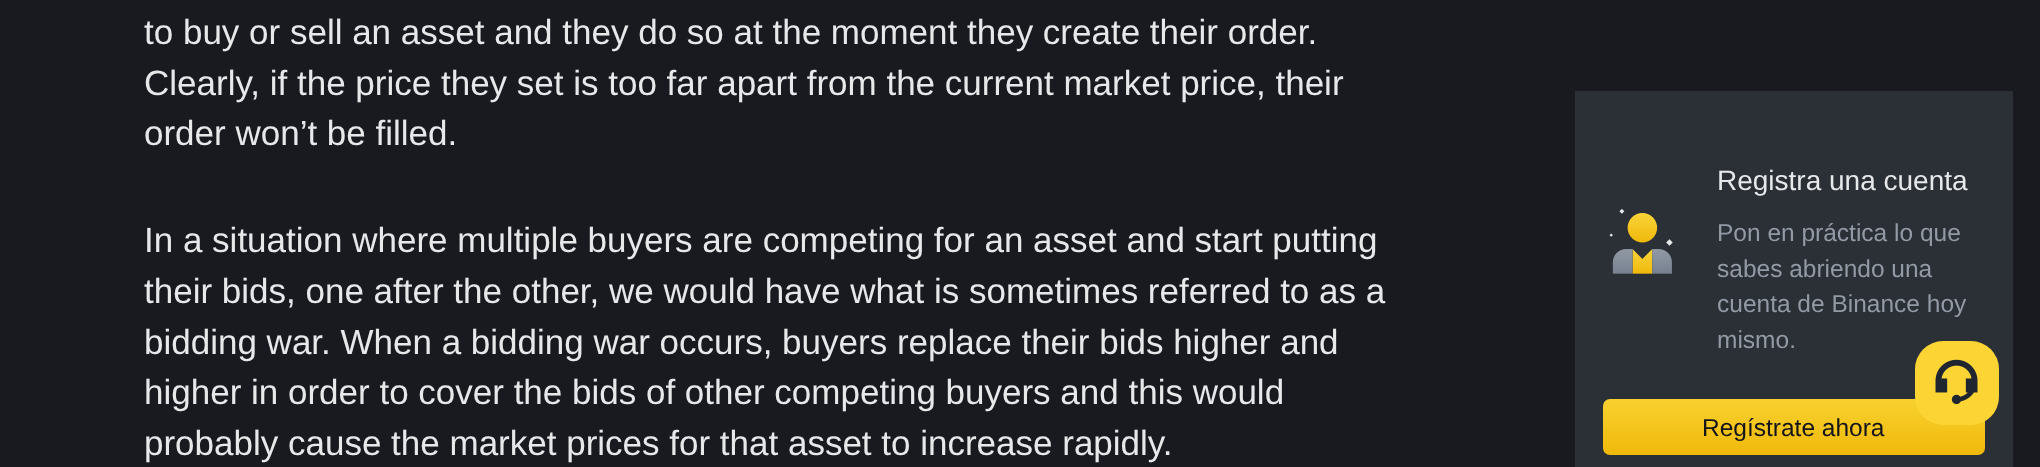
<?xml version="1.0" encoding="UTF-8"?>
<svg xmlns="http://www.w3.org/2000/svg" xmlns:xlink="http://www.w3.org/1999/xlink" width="2040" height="467">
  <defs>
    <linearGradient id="g1" gradientUnits="userSpaceOnUse" x1="1794" y1="399" x2="1794" y2="455"><stop offset="0" stop-color="#f8d12f" /><stop offset="1" stop-color="#f0b90b" /></linearGradient>
  </defs>
  <rect width="100%" height="100%" fill="#181a20" />
  <rect x="1575" y="91" width="438" height="376" fill="#2b2f36" />
  <image x="1609" y="209" width="64" height="65" xlink:href="image1.png" />
  <rect x="1603" y="399" width="382" height="56" rx="7" fill="url(#g1)" />
  <rect x="1915" y="341" width="84" height="84" rx="28" fill="#fcd535" />
  <image x="1935" y="359" width="43" height="46" xlink:href="image2.png" />
  <text x="144" y="44" style="font-family: Liberation Sans; font-size: 35px; fill: #e6e8ea">to buy or sell an asset and they do so at the moment they create their order.</text>
  <text x="144" y="95" style="font-family: Liberation Sans; font-size: 35px; fill: #e6e8ea">Clearly, if the price they set is too far apart from the current market price, their</text>
  <text x="144" y="145" style="font-family: Liberation Sans; font-size: 35px; fill: #e6e8ea">order won’t be filled.</text>
  <text x="144" y="252" style="font-family: Liberation Sans; font-size: 35px; fill: #e6e8ea">In a situation where multiple buyers are competing for an asset and start putting</text>
  <text x="144" y="303" style="font-family: Liberation Sans; font-size: 35px; fill: #e6e8ea">their bids, one after the other, we would have what is sometimes referred to as a</text>
  <text x="144" y="354" style="font-family: Liberation Sans; font-size: 35px; fill: #e6e8ea">bidding war. When a bidding war occurs, buyers replace their bids higher and</text>
  <text x="144" y="404" style="font-family: Liberation Sans; font-size: 35px; fill: #e6e8ea">higher in order to cover the bids of other competing buyers and this would</text>
  <text x="144" y="455" style="font-family: Liberation Sans; font-size: 35px; fill: #e6e8ea">probably cause the market prices for that asset to increase rapidly.</text>
  <text x="1717" y="190" style="font-family: Liberation Sans; font-size: 28px; fill: #e6e8ea">Registra una cuenta</text>
  <text x="1717" y="241" style="font-family: Liberation Sans; font-size: 24.5px; fill: #929aa5">Pon en práctica lo que</text>
  <text x="1717" y="277" style="font-family: Liberation Sans; font-size: 24.5px; fill: #929aa5">sabes abriendo una</text>
  <text x="1717" y="312" style="font-family: Liberation Sans; font-size: 24.5px; fill: #929aa5">cuenta de Binance hoy</text>
  <text x="1717" y="348" style="font-family: Liberation Sans; font-size: 24.5px; fill: #929aa5">mismo.</text>
  <text x="1702" y="436" style="font-family: Liberation Sans; font-size: 24.5px; fill: #14151a">Regístrate ahora</text>
</svg>
